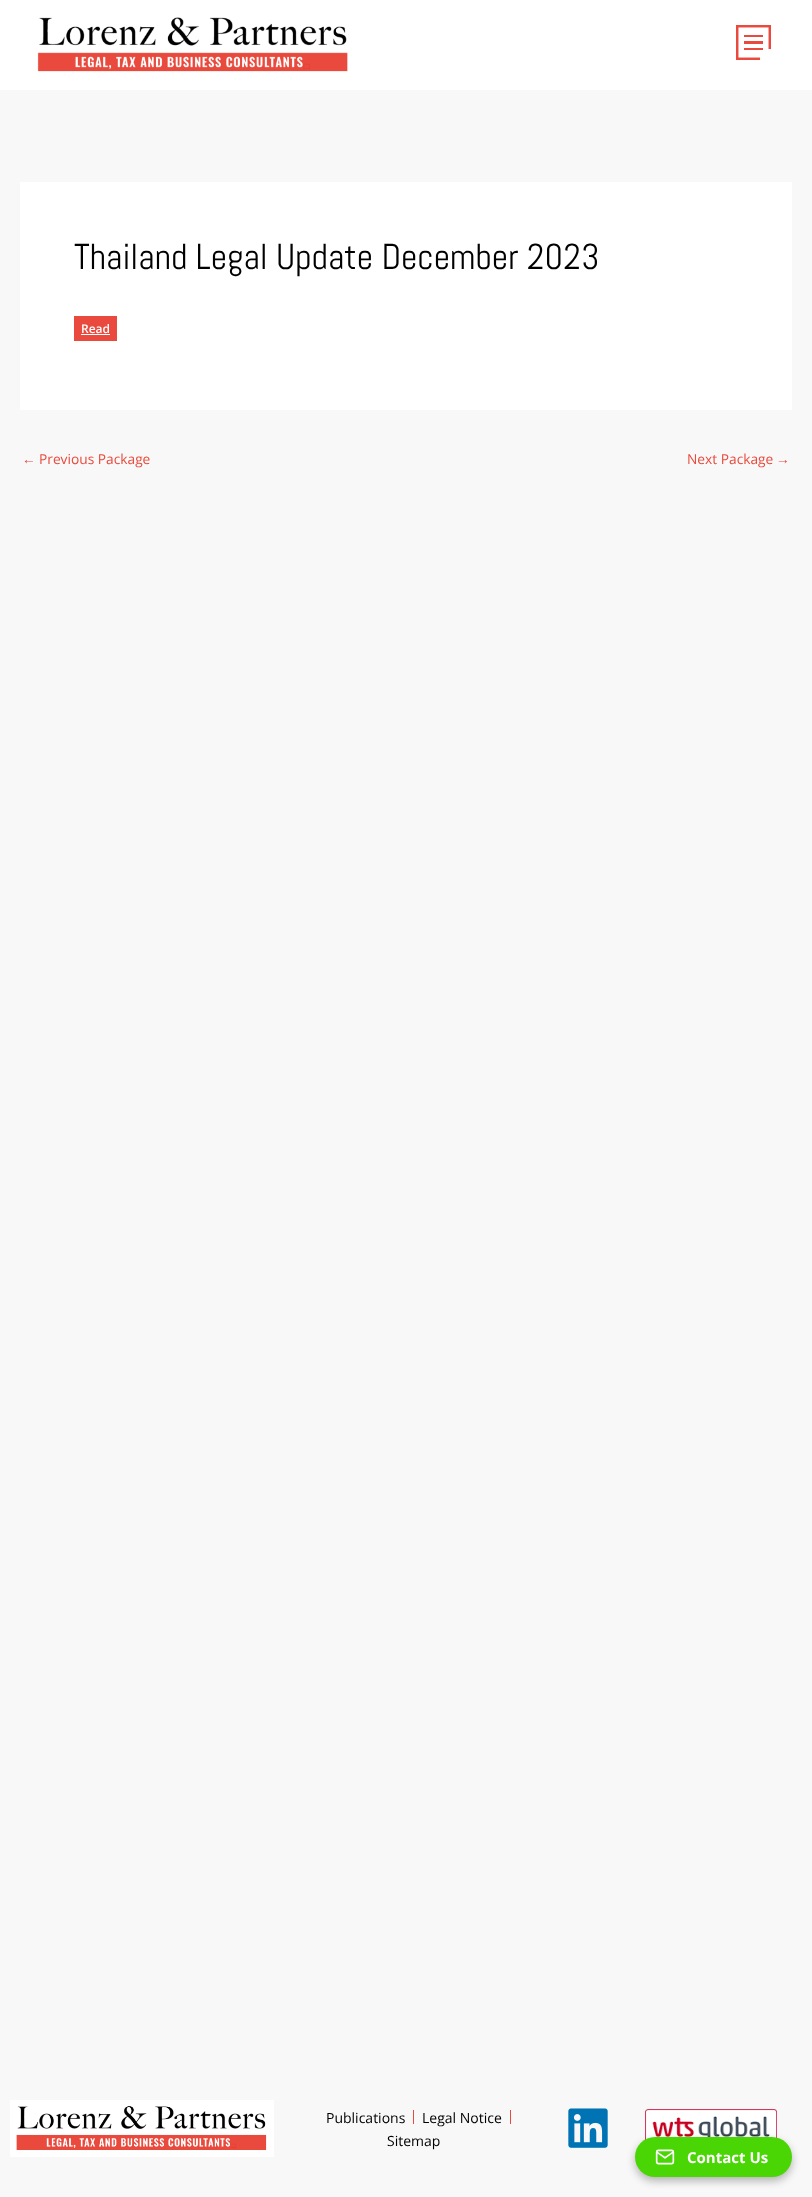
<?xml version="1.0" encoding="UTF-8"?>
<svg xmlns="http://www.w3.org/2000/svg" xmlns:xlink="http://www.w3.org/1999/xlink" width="812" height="2197">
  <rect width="100%" height="100%" fill="#f8f8f8" />
  <rect width="812" height="90" fill="#ffffff" />
  <image x="37" y="17" width="311" height="55" xlink:href="image1.png" />
  <image x="736" y="25" width="35" height="35" xlink:href="image2.png" />
  <rect x="20" y="182" width="772" height="228" fill="#ffffff" />
  <rect x="74" y="316" width="43" height="25" fill="#e94a3d" />
  <rect x="81" y="334" width="29" height="1" fill="#ffffff" />
  <image x="10" y="2100" width="264" height="57" xlink:href="image3.png" />
  <rect x="413" y="2110" width="1" height="14" fill="#e94a3d" />
  <rect x="510" y="2110" width="1" height="14" fill="#e94a3d" />
  <image x="568" y="2108" width="40" height="40" xlink:href="image4.png" />
  <image x="645" y="2109" width="132" height="31" xlink:href="image5.png" />
  <rect x="635" y="2141" width="157" height="40" rx="20" fill="#000000" fill-opacity="0.28" filter="blur(4px)" />
  <rect x="635" y="2137" width="157" height="40" rx="20" fill="#4ad504" />
  <image x="655" y="2149" width="20" height="16" xlink:href="image6.png" />
  <text x="74" y="269" style="font-family: Abel; font-size: 36px; fill: #000000">Thailand Legal Update December 2023</text>
  <text x="81" y="333" style="font-family: Open Sans; font-size: 12px; font-weight: 600; fill: #ffffff">Read</text>
  <text x="22" y="464" style="font-family: Liberation Sans; font-size: 13.75px; fill: #e94a3d">←</text>
  <text x="39" y="464" style="font-family: Open Sans; font-size: 13.75px; fill: #e94a3d">Previous Package</text>
  <text x="687" y="464" style="font-family: Open Sans; font-size: 13.75px; fill: #e94a3d">Next Package</text>
  <text x="776" y="464" style="font-family: Liberation Sans; font-size: 13.75px; fill: #e94a3d">→</text>
  <text x="326" y="2123" style="font-family: Open Sans; font-size: 14px; fill: #000000">Publications</text>
  <text x="422" y="2123" style="font-family: Open Sans; font-size: 14px; fill: #000000">Legal Notice</text>
  <text x="387" y="2146" style="font-family: Open Sans; font-size: 14px; fill: #000000">Sitemap</text>
  <text x="687" y="2163" style="font-family: Open Sans; font-size: 15px; font-weight: bold; fill: #ffffff">Contact Us</text>
</svg>
